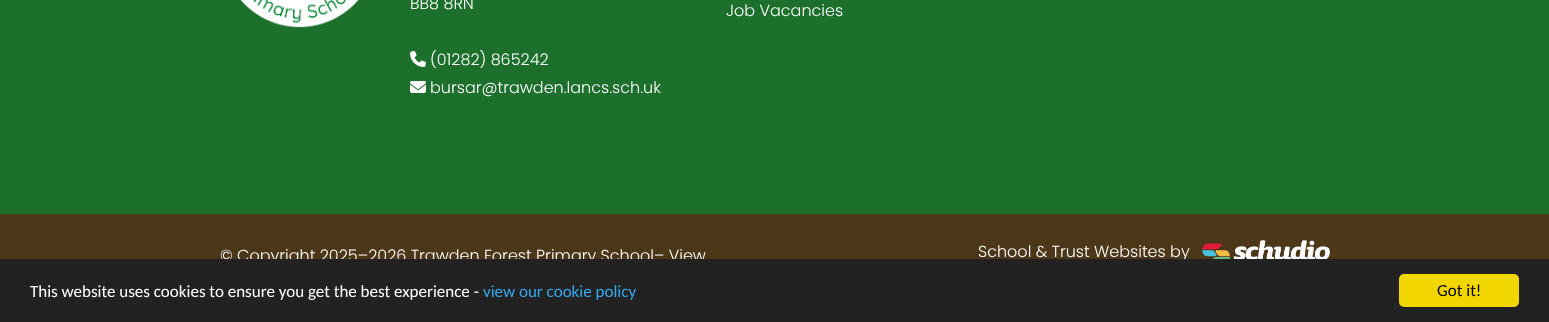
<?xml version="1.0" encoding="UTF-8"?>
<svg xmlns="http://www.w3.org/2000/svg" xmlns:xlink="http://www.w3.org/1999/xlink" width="1549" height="322">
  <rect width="100%" height="100%" fill="#1c702b" />
  <image x="240" y="0" width="119" height="28" xlink:href="image1.png" />
  <image x="410" y="51" width="16" height="16" xlink:href="image2.png" />
  <image x="410" y="81" width="16" height="12" xlink:href="image3.png" />
  <rect y="214" width="1549" height="45" fill="#4c3719" />
  <image x="1202" y="240" width="128" height="19" xlink:href="image4.png" />
  <text x="410" y="9" style="font-family: Poppins; font-size: 16px; font-weight: 300; fill: #ffffff">BB8 8RN</text>
  <text x="430" y="65" style="font-family: Poppins; font-size: 16px; font-weight: 300; fill: #ffffff">(01282) 865242</text>
  <text x="430" y="93" style="font-family: Poppins; font-size: 16px; font-weight: 300; fill: #ffffff">bursar@trawden.lancs.sch.uk</text>
  <text x="726" y="16" style="font-family: Poppins; font-size: 16px; font-weight: 300; fill: #ffffff">Job Vacancies</text>
  <text x="220" y="261" style="font-family: Poppins; font-size: 16px; font-weight: 300; fill: #ffffff">© Copyright 2025–2026 Trawden Forest Primary School– View</text>
  <text x="978" y="257" style="font-family: Poppins; font-size: 16px; font-weight: 300; fill: #ffffff">School &amp; Trust Websites by</text>
  <rect y="259" width="1549" height="63" fill="#222222" />
  <text x="30" y="297" style="font-family: Carlito; font-size: 17px; fill: #ffffff">This website uses cookies to ensure you get the best experience -</text>
  <text x="483" y="297" style="font-family: Carlito; font-size: 17px; fill: #31a8f0">view our cookie policy</text>
  <rect x="1399" y="274" width="120" height="33" rx="5" fill="#f1d600" />
  <text x="1437" y="296" style="font-family: Carlito; font-size: 17px; fill: #000000">Got it!</text>
</svg>
